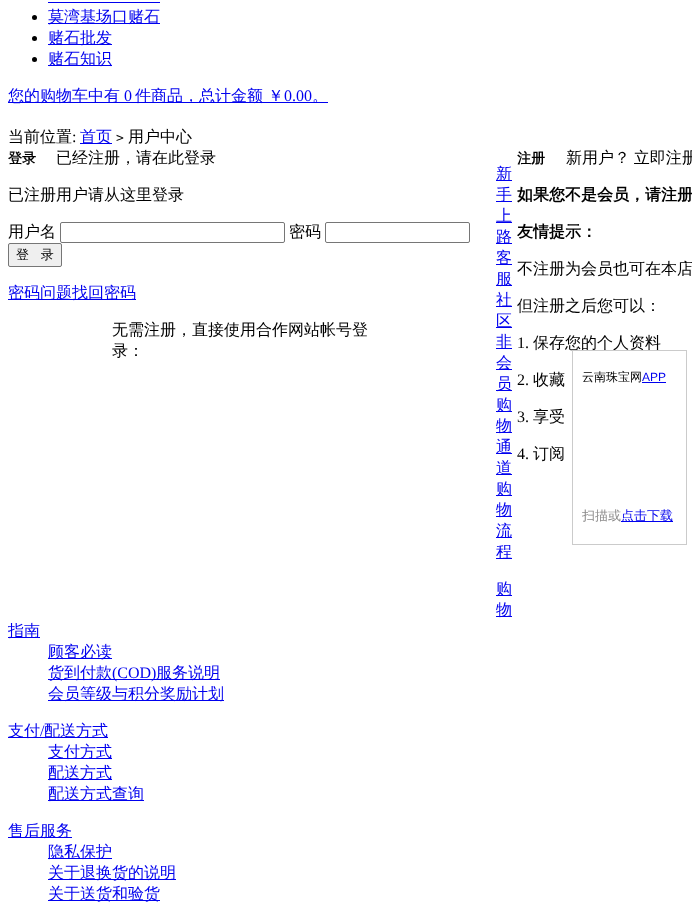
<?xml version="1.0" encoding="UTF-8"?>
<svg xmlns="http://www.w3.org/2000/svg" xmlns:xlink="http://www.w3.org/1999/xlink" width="692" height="918">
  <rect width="100%" height="100%" fill="#ffffff" />
  <rect x="48" y="2" width="112" height="1" fill="#0000ee" />
  <circle cx="34.5" cy="17.5" r="2.5" fill="#000000" />
  <rect x="48" y="23" width="112" height="1" fill="#0000ee" />
  <circle cx="34.5" cy="38.5" r="2.5" fill="#000000" />
  <rect x="48" y="44" width="64" height="1" fill="#0000ee" />
  <circle cx="34.5" cy="59.5" r="2.5" fill="#000000" />
  <rect x="48" y="65" width="64" height="1" fill="#0000ee" />
  <rect x="8" y="102" width="320" height="1" fill="#0000ee" />
  <rect x="80" y="143" width="32" height="1" fill="#0000ee" />
  <rect x="60.5" y="222.5" width="224" height="20" rx="1.5" fill="none" stroke="#767676" />
  <rect x="325.5" y="222.5" width="144" height="20" rx="1.5" fill="none" stroke="#767676" />
  <rect x="8.5" y="243.5" width="53" height="23" rx="1.5" fill="#efefef" stroke="#767676" />
  <rect x="8" y="299" width="128" height="1" fill="#0000ee" />
  <rect x="496" y="180" width="16" height="1" fill="#0000ee" />
  <rect x="496" y="201" width="16" height="1" fill="#0000ee" />
  <rect x="496" y="222" width="16" height="1" fill="#0000ee" />
  <rect x="496" y="243" width="16" height="1" fill="#0000ee" />
  <rect x="496" y="264" width="16" height="1" fill="#0000ee" />
  <rect x="496" y="285" width="16" height="1" fill="#0000ee" />
  <rect x="496" y="306" width="16" height="1" fill="#0000ee" />
  <rect x="496" y="327" width="16" height="1" fill="#0000ee" />
  <rect x="496" y="348" width="16" height="1" fill="#0000ee" />
  <rect x="496" y="369" width="16" height="1" fill="#0000ee" />
  <rect x="496" y="390" width="16" height="1" fill="#0000ee" />
  <rect x="496" y="411" width="16" height="1" fill="#0000ee" />
  <rect x="496" y="432" width="16" height="1" fill="#0000ee" />
  <rect x="496" y="453" width="16" height="1" fill="#0000ee" />
  <rect x="496" y="474" width="16" height="1" fill="#0000ee" />
  <rect x="496" y="495" width="16" height="1" fill="#0000ee" />
  <rect x="496" y="516" width="16" height="1" fill="#0000ee" />
  <rect x="496" y="537" width="16" height="1" fill="#0000ee" />
  <rect x="496" y="558" width="16" height="1" fill="#0000ee" />
  <rect x="496" y="595" width="16" height="1" fill="#0000ee" />
  <rect x="496" y="616" width="16" height="1" fill="#0000ee" />
  <rect x="8" y="637" width="32" height="1" fill="#0000ee" />
  <rect x="48" y="658" width="64" height="1" fill="#0000ee" />
  <rect x="48" y="679" width="172" height="1" fill="#0000ee" />
  <rect x="48" y="700" width="176" height="1" fill="#0000ee" />
  <rect x="8" y="737" width="100" height="1" fill="#0000ee" />
  <rect x="48" y="758" width="64" height="1" fill="#0000ee" />
  <rect x="48" y="779" width="64" height="1" fill="#0000ee" />
  <rect x="48" y="800" width="96" height="1" fill="#0000ee" />
  <rect x="8" y="837" width="64" height="1" fill="#0000ee" />
  <rect x="48" y="858" width="64" height="1" fill="#0000ee" />
  <rect x="48" y="879" width="128" height="1" fill="#0000ee" />
  <rect x="48" y="900" width="112" height="1" fill="#0000ee" />
  <text x="48" y="22" style="font-family: WenQuanYi Zen Hei; font-size: 16px; font-weight: 500; fill: #0000ee">莫湾基场口赌石</text>
  <text x="48" y="43" style="font-family: WenQuanYi Zen Hei; font-size: 16px; font-weight: 500; fill: #0000ee">赌石批发</text>
  <text x="48" y="64" style="font-family: WenQuanYi Zen Hei; font-size: 16px; font-weight: 500; fill: #0000ee">赌石知识</text>
  <text x="8" y="101" style="font-family: WenQuanYi Zen Hei; font-size: 16px; font-weight: 500; fill: #0000ee">您的购物车中有</text>
  <text x="124" y="101" style="font-family: Liberation Serif; font-size: 16px; fill: #0000ee">0</text>
  <text x="135" y="101" style="font-family: WenQuanYi Zen Hei; font-size: 16px; font-weight: 500; fill: #0000ee">件商品，总计金额 ￥</text>
  <text x="284" y="101" style="font-family: Liberation Serif; font-size: 16px; fill: #0000ee">0.00</text>
  <text x="312" y="101" style="font-family: WenQuanYi Zen Hei; font-size: 16px; font-weight: 500; fill: #0000ee">。</text>
  <text x="8" y="142" style="font-family: WenQuanYi Zen Hei; font-size: 16px; font-weight: 500; fill: #000000">当前位置</text>
  <text x="72" y="142" style="font-family: Liberation Serif; font-size: 16px; fill: #000000">:</text>
  <text x="80" y="142" style="font-family: WenQuanYi Zen Hei; font-size: 16px; font-weight: 500; fill: #0000ee">首页</text>
  <text x="116" y="142" style="font-family: DejaVu Sans Mono; font-size: 13px; fill: #000000">&gt;</text>
  <text x="128" y="142" style="font-family: WenQuanYi Zen Hei; font-size: 16px; font-weight: 500; fill: #000000">用户中心</text>
  <text x="8" y="163" style="font-family: WenQuanYi Zen Hei; font-size: 14px; font-weight: bold; fill: #000000">登录</text>
  <text x="56" y="163" style="font-family: WenQuanYi Zen Hei; font-size: 16px; font-weight: 500; fill: #000000">已经注册，请在此登录</text>
  <text x="8" y="200" style="font-family: WenQuanYi Zen Hei; font-size: 16px; font-weight: 500; fill: #000000">已注册用户请从这里登录</text>
  <text x="8" y="237" style="font-family: WenQuanYi Zen Hei; font-size: 16px; font-weight: 500; fill: #000000">用户名</text>
  <text x="289" y="237" style="font-family: WenQuanYi Zen Hei; font-size: 16px; font-weight: 500; fill: #000000">密码</text>
  <text x="16" y="259" style="font-family: WenQuanYi Zen Hei; font-size: 13px; font-weight: 500; fill: #000000" xml:space="preserve">登   录</text>
  <text x="8" y="298" style="font-family: WenQuanYi Zen Hei; font-size: 16px; font-weight: 500; fill: #0000ee">密码问题找回密码</text>
  <text x="112" y="335" style="font-family: WenQuanYi Zen Hei; font-size: 16px; font-weight: 500; fill: #000000">无需注册，直接使用合作网站帐号登</text>
  <text x="112" y="356" style="font-family: WenQuanYi Zen Hei; font-size: 16px; font-weight: 500; fill: #000000">录：</text>
  <text x="517" y="163" style="font-family: WenQuanYi Zen Hei; font-size: 14px; font-weight: bold; fill: #000000">注册</text>
  <text x="566" y="163" word-spacing="-1" style="font-family: WenQuanYi Zen Hei; font-size: 16px; font-weight: 500; fill: #000000">新用户？ 立即注册</text>
  <text x="517" y="200" style="font-family: WenQuanYi Zen Hei; font-size: 16px; font-weight: bold; fill: #000000">如果您不是会员，请注册</text>
  <text x="517" y="237" style="font-family: WenQuanYi Zen Hei; font-size: 16px; font-weight: bold; fill: #000000">友情提示：</text>
  <text x="517" y="274" style="font-family: WenQuanYi Zen Hei; font-size: 16px; font-weight: 500; fill: #000000">不注册为会员也可在本店</text>
  <text x="517" y="311" style="font-family: WenQuanYi Zen Hei; font-size: 16px; font-weight: 500; fill: #000000">但注册之后您可以：</text>
  <text x="517" y="348" style="font-family: Liberation Serif; font-size: 16px; fill: #000000">1.</text>
  <text x="533" y="348" style="font-family: WenQuanYi Zen Hei; font-size: 16px; font-weight: 500; fill: #000000">保存您的个人资料</text>
  <text x="517" y="385" style="font-family: Liberation Serif; font-size: 16px; fill: #000000">2.</text>
  <text x="533" y="385" style="font-family: WenQuanYi Zen Hei; font-size: 16px; font-weight: 500; fill: #000000">收藏</text>
  <text x="517" y="422" style="font-family: Liberation Serif; font-size: 16px; fill: #000000">3.</text>
  <text x="533" y="422" style="font-family: WenQuanYi Zen Hei; font-size: 16px; font-weight: 500; fill: #000000">享受</text>
  <text x="517" y="459" style="font-family: Liberation Serif; font-size: 16px; fill: #000000">4.</text>
  <text x="533" y="459" style="font-family: WenQuanYi Zen Hei; font-size: 16px; font-weight: 500; fill: #000000">订阅</text>
  <text x="496" y="179" style="font-family: WenQuanYi Zen Hei; font-size: 16px; font-weight: 500; fill: #0000ee">新</text>
  <text x="496" y="200" style="font-family: WenQuanYi Zen Hei; font-size: 16px; font-weight: 500; fill: #0000ee">手</text>
  <text x="496" y="221" style="font-family: WenQuanYi Zen Hei; font-size: 16px; font-weight: 500; fill: #0000ee">上</text>
  <text x="496" y="242" style="font-family: WenQuanYi Zen Hei; font-size: 16px; font-weight: 500; fill: #0000ee">路</text>
  <text x="496" y="263" style="font-family: WenQuanYi Zen Hei; font-size: 16px; font-weight: 500; fill: #0000ee">客</text>
  <text x="496" y="284" style="font-family: WenQuanYi Zen Hei; font-size: 16px; font-weight: 500; fill: #0000ee">服</text>
  <text x="496" y="305" style="font-family: WenQuanYi Zen Hei; font-size: 16px; font-weight: 500; fill: #0000ee">社</text>
  <text x="496" y="326" style="font-family: WenQuanYi Zen Hei; font-size: 16px; font-weight: 500; fill: #0000ee">区</text>
  <text x="496" y="347" style="font-family: WenQuanYi Zen Hei; font-size: 16px; font-weight: 500; fill: #0000ee">非</text>
  <text x="496" y="368" style="font-family: WenQuanYi Zen Hei; font-size: 16px; font-weight: 500; fill: #0000ee">会</text>
  <text x="496" y="389" style="font-family: WenQuanYi Zen Hei; font-size: 16px; font-weight: 500; fill: #0000ee">员</text>
  <text x="496" y="410" style="font-family: WenQuanYi Zen Hei; font-size: 16px; font-weight: 500; fill: #0000ee">购</text>
  <text x="496" y="431" style="font-family: WenQuanYi Zen Hei; font-size: 16px; font-weight: 500; fill: #0000ee">物</text>
  <text x="496" y="452" style="font-family: WenQuanYi Zen Hei; font-size: 16px; font-weight: 500; fill: #0000ee">通</text>
  <text x="496" y="473" style="font-family: WenQuanYi Zen Hei; font-size: 16px; font-weight: 500; fill: #0000ee">道</text>
  <text x="496" y="494" style="font-family: WenQuanYi Zen Hei; font-size: 16px; font-weight: 500; fill: #0000ee">购</text>
  <text x="496" y="515" style="font-family: WenQuanYi Zen Hei; font-size: 16px; font-weight: 500; fill: #0000ee">物</text>
  <text x="496" y="536" style="font-family: WenQuanYi Zen Hei; font-size: 16px; font-weight: 500; fill: #0000ee">流</text>
  <text x="496" y="557" style="font-family: WenQuanYi Zen Hei; font-size: 16px; font-weight: 500; fill: #0000ee">程</text>
  <text x="496" y="594" style="font-family: WenQuanYi Zen Hei; font-size: 16px; font-weight: 500; fill: #0000ee">购</text>
  <text x="496" y="615" style="font-family: WenQuanYi Zen Hei; font-size: 16px; font-weight: 500; fill: #0000ee">物</text>
  <text x="8" y="636" style="font-family: WenQuanYi Zen Hei; font-size: 16px; font-weight: 500; fill: #0000ee">指南</text>
  <text x="48" y="657" style="font-family: WenQuanYi Zen Hei; font-size: 16px; font-weight: 500; fill: #0000ee">顾客必读</text>
  <text x="48" y="678" style="font-family: WenQuanYi Zen Hei; font-size: 16px; font-weight: 500; fill: #0000ee">货到付款</text>
  <text x="112" y="678" style="font-family: Liberation Serif; font-size: 16px; fill: #0000ee">(COD)</text>
  <text x="156" y="678" style="font-family: WenQuanYi Zen Hei; font-size: 16px; font-weight: 500; fill: #0000ee">服务说明</text>
  <text x="48" y="699" style="font-family: WenQuanYi Zen Hei; font-size: 16px; font-weight: 500; fill: #0000ee">会员等级与积分奖励计划</text>
  <text x="8" y="736" style="font-family: WenQuanYi Zen Hei; font-size: 16px; font-weight: 500; fill: #0000ee">支付</text>
  <text x="40" y="736" style="font-family: Liberation Serif; font-size: 16px; fill: #0000ee">/</text>
  <text x="44" y="736" style="font-family: WenQuanYi Zen Hei; font-size: 16px; font-weight: 500; fill: #0000ee">配送方式</text>
  <text x="48" y="757" style="font-family: WenQuanYi Zen Hei; font-size: 16px; font-weight: 500; fill: #0000ee">支付方式</text>
  <text x="48" y="778" style="font-family: WenQuanYi Zen Hei; font-size: 16px; font-weight: 500; fill: #0000ee">配送方式</text>
  <text x="48" y="799" style="font-family: WenQuanYi Zen Hei; font-size: 16px; font-weight: 500; fill: #0000ee">配送方式查询</text>
  <text x="8" y="836" style="font-family: WenQuanYi Zen Hei; font-size: 16px; font-weight: 500; fill: #0000ee">售后服务</text>
  <text x="48" y="857" style="font-family: WenQuanYi Zen Hei; font-size: 16px; font-weight: 500; fill: #0000ee">隐私保护</text>
  <text x="48" y="878" style="font-family: WenQuanYi Zen Hei; font-size: 16px; font-weight: 500; fill: #0000ee">关于退换货的说明</text>
  <text x="48" y="899" style="font-family: WenQuanYi Zen Hei; font-size: 16px; font-weight: 500; fill: #0000ee">关于送货和验货</text>
  <rect x="572.5" y="350.5" width="114" height="194" fill="none" stroke="#cbcbcb" />
  <text x="582" y="381" style="font-family: WenQuanYi Zen Hei; font-size: 12px; font-weight: 500; fill: #000000">云南珠宝网</text>
  <text x="642" y="381" style="font-family: Liberation Sans; font-size: 12px; fill: #0000ee">APP</text>
  <rect x="642" y="382" width="24" height="1" fill="#0000ee" />
  <text x="582" y="520" style="font-family: WenQuanYi Zen Hei; font-size: 13px; font-weight: 500; fill: #8c8b8b">扫描或</text>
  <rect x="621" y="521" width="52" height="1" fill="#0000ee" />
  <text x="621" y="520" style="font-family: WenQuanYi Zen Hei; font-size: 13px; font-weight: 500; fill: #0000ee">点击下载</text>
</svg>
